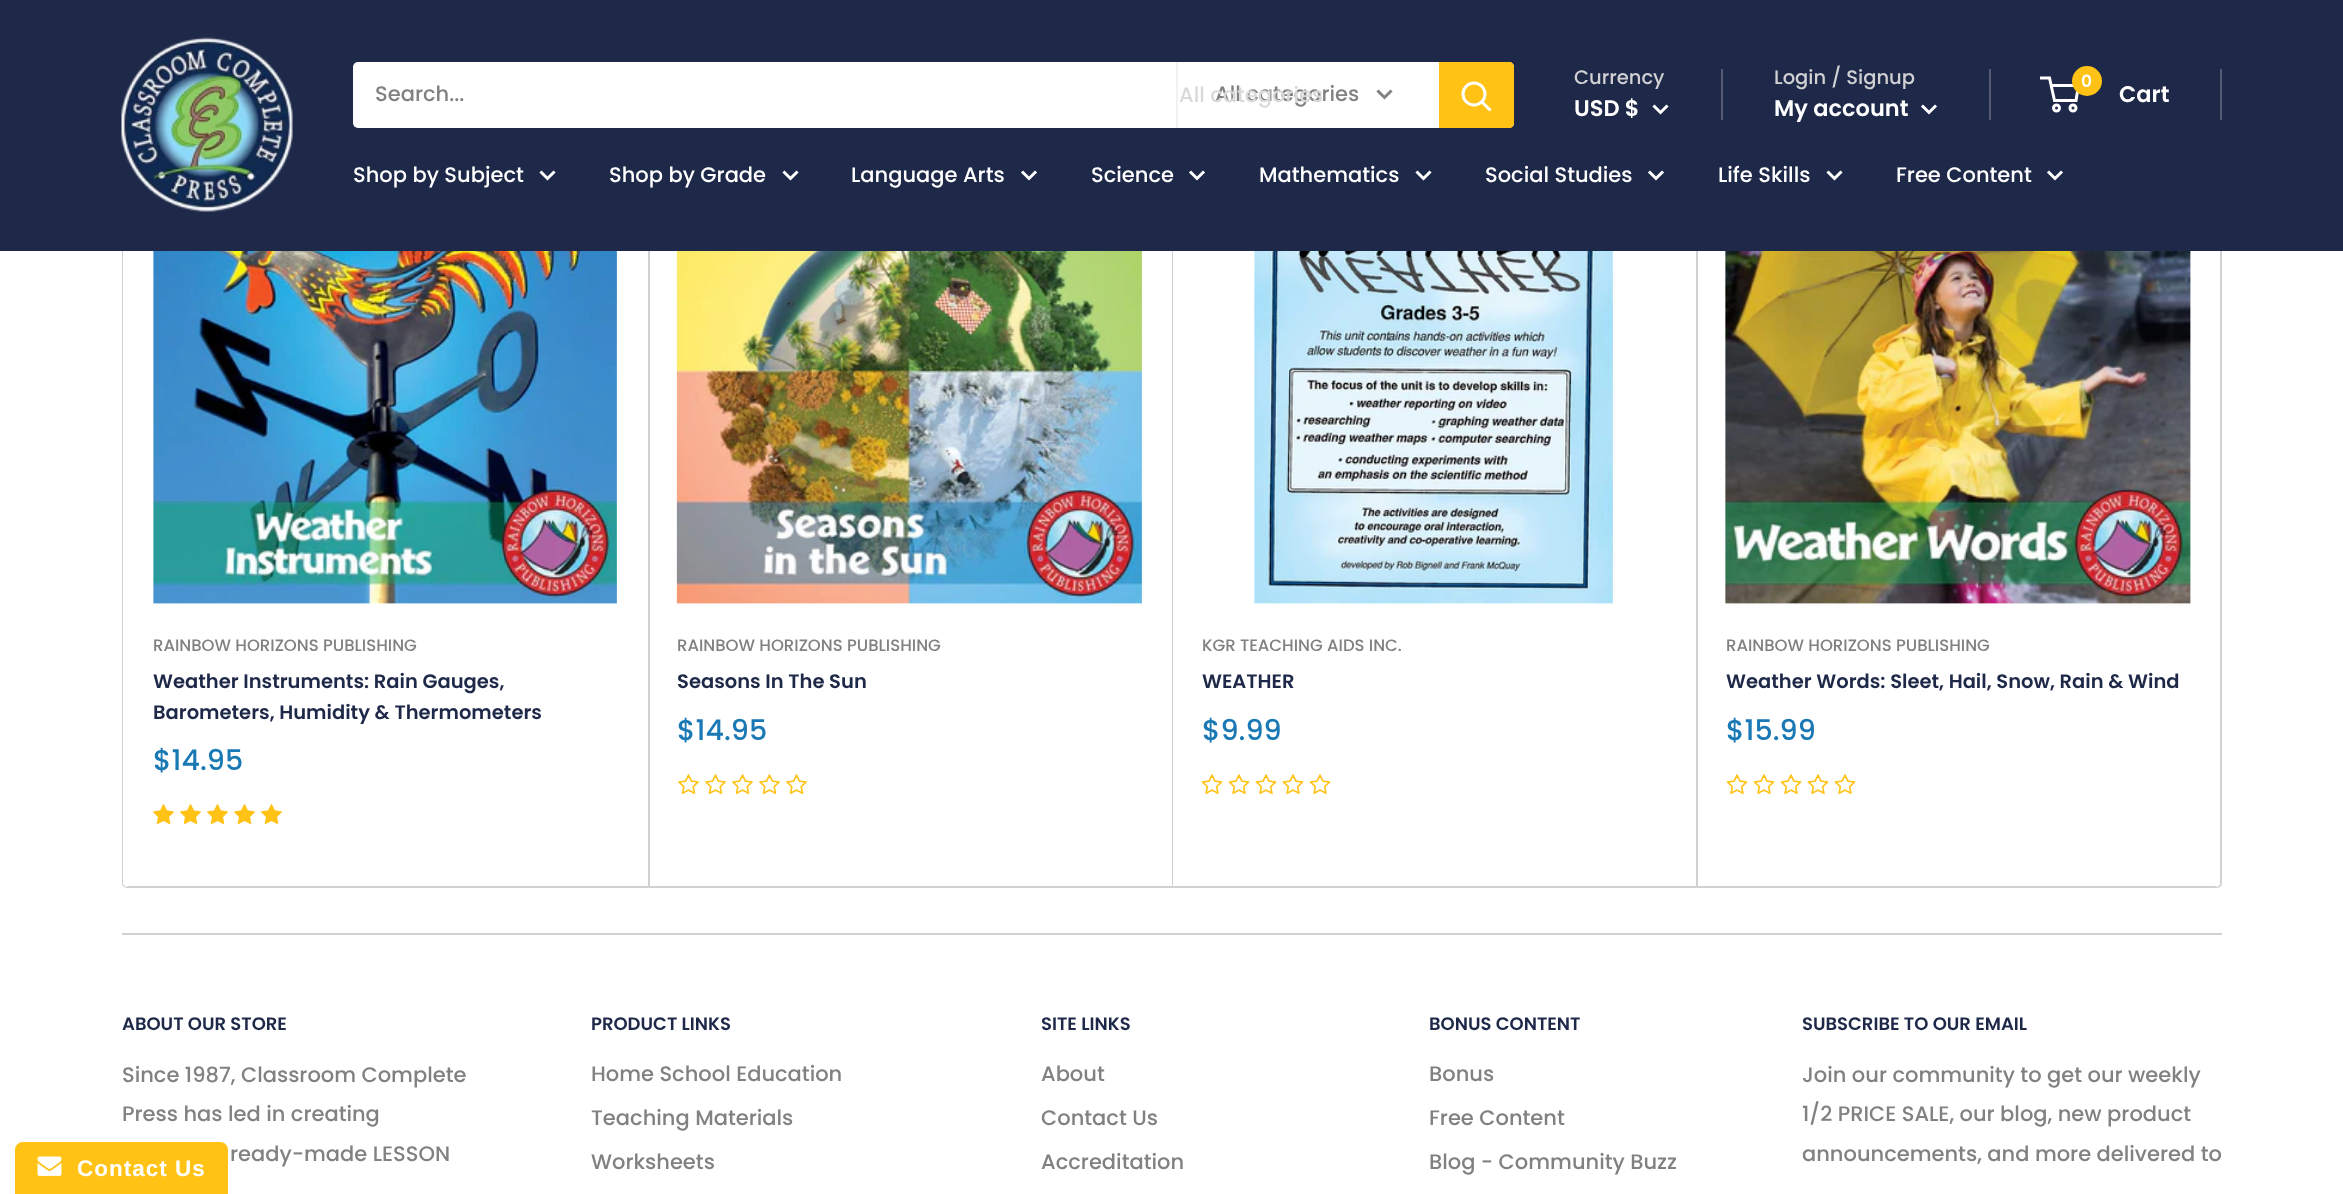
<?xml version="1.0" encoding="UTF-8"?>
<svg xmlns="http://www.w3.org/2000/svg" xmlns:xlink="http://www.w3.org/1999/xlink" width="2343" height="1194">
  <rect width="100%" height="100%" fill="#ffffff" />
  <rect x="123" y="-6" width="2098" height="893" rx="4" fill="none" stroke="#d1d1d4" stroke-width="2" />
  <rect x="123" y="-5" width="2097" height="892" rx="5" fill="#ffffff" />
  <path d="M 123 108 h 525 v 779 h -520 c -3 0 -5 -2 -5 -5 z" fill="#ffffff" />
  <image x="153" y="251" width="464" height="353" xlink:href="image2.png" />
  <image x="153" y="804" width="21" height="21" xlink:href="image3.png" />
  <image x="180" y="804" width="21" height="21" xlink:href="image3.png" />
  <image x="207" y="804" width="21" height="21" xlink:href="image3.png" />
  <image x="234" y="804" width="21" height="21" xlink:href="image3.png" />
  <image x="261" y="804" width="21" height="21" xlink:href="image3.png" />
  <image x="676" y="251" width="466" height="353" xlink:href="image4.png" />
  <image x="678" y="774" width="21" height="21" xlink:href="image5.png" />
  <image x="705" y="774" width="21" height="21" xlink:href="image5.png" />
  <image x="732" y="774" width="21" height="21" xlink:href="image5.png" />
  <image x="759" y="774" width="21" height="21" xlink:href="image5.png" />
  <image x="786" y="774" width="21" height="21" xlink:href="image5.png" />
  <image x="1254" y="251" width="359" height="353" xlink:href="image6.png" />
  <image x="1201" y="774" width="22" height="21" xlink:href="image7.png" />
  <image x="1228" y="774" width="22" height="21" xlink:href="image7.png" />
  <image x="1255" y="774" width="22" height="21" xlink:href="image7.png" />
  <image x="1282" y="774" width="22" height="21" xlink:href="image7.png" />
  <image x="1309" y="774" width="22" height="21" xlink:href="image7.png" />
  <path d="M 1697 108 h 523 v 774 c 0 3 -2 5 -5 5 h -518 z" fill="#ffffff" />
  <image x="1725" y="251" width="466" height="353" xlink:href="image8.png" />
  <image x="1726" y="774" width="22" height="21" xlink:href="image7.png" />
  <image x="1753" y="774" width="22" height="21" xlink:href="image7.png" />
  <image x="1780" y="774" width="22" height="21" xlink:href="image7.png" />
  <image x="1807" y="774" width="22" height="21" xlink:href="image7.png" />
  <image x="1834" y="774" width="22" height="21" xlink:href="image7.png" />
  <rect x="122" y="933" width="2100" height="2" fill="#d1d1d4" />
  <path d="M 23 1142 h 197 c 4.5 0 8 3.5 8 8 v 44 h -213 v -44 c 0 -4.5 3.5 -8 8 -8 z" fill="#ffc215" />
  <image x="37" y="1156" width="25" height="20" xlink:href="image9.png" />
  <text x="153" y="651" style="font-family: Poppins; font-size: 16.5px; font-weight: 500; fill: #808183">RAINBOW HORIZONS PUBLISHING</text>
  <text x="153" y="688" style="font-family: Poppins; font-size: 19.5px; font-weight: 600; fill: #1e2848">Weather Instruments: Rain Gauges,</text>
  <text x="153" y="719" style="font-family: Poppins; font-size: 19.5px; font-weight: 600; fill: #1e2848">Barometers, Humidity &amp; Thermometers</text>
  <text x="153" y="770" style="font-family: Poppins; font-size: 28.5px; font-weight: 500; fill: #1a79b5">$14.95</text>
  <path d="M 126 886 l 2 1 h 522 v -779 h -2 v 778 z" fill="#d1d1d4" />
  <path d="M 648 886 v 1 h 524 v -777 v 776 z" fill="#d1d1d4" />
  <text x="677" y="651" style="font-family: Poppins; font-size: 16.5px; font-weight: 500; fill: #808183">RAINBOW HORIZONS PUBLISHING</text>
  <text x="677" y="688" style="font-family: Poppins; font-size: 19.5px; font-weight: 600; fill: #1e2848">Seasons In The Sun</text>
  <text x="677" y="740" style="font-family: Poppins; font-size: 28.5px; font-weight: 500; fill: #1a79b5">$14.95</text>
  <path d="M 650 886 v 1 h 523 v -779 h -1 v 778 z" fill="#d1d1d4" />
  <text x="1202" y="651" style="font-family: Poppins; font-size: 16.5px; font-weight: 500; fill: #808183">KGR TEACHING AIDS INC.</text>
  <text x="1202" y="688" style="font-family: Poppins; font-size: 19.5px; font-weight: 600; fill: #1e2848">WEATHER</text>
  <text x="1202" y="740" style="font-family: Poppins; font-size: 28.5px; font-weight: 500; fill: #1a79b5">$9.99</text>
  <path d="M 1172 886 v 1 h 525 v -777 h -1 v 776 z" fill="#d1d1d4" />
  <path d="M 1173 886 v 1 h 525 v -779 h -2 v 778 z" fill="#d1d1d4" />
  <rect width="2343" height="251" fill="#1e2848" />
  <path d="M 2051 85.5 h 27.5 l -2.5 15 h -21.5 l -5 -22.5 h -9.5" fill="none" stroke="#ffffff" stroke-width="3" />
  <circle cx="2087" cy="81" r="15" fill="#ffc215" />
  <text x="2081" y="87" style="font-family: Poppins; font-size: 17px; font-weight: 600; fill: #ffffff">0</text>
  <rect x="353" y="62" width="1161" height="66" rx="5" fill="#ffffff" />
  <path d="M 1439 62 h 70 c 3 0 5 2 5 5 v 56 c 0 3 -2 5 -5 5 h -70 z" fill="#ffc215" />
  <path d="M 1489.5 109.5 l -7.5 -7.5" fill="none" stroke="#ffffff" stroke-width="3" stroke-linecap="square" />
  <circle cx="1474" cy="94" r="11" fill="none" stroke="#ffffff" stroke-width="3" />
  <text x="1215" y="101" style="font-family: Poppins; font-size: 21px; font-weight: 500; fill: #808183">All categories</text>
  <text x="1179" y="102" style="font-family: Poppins; font-size: 21px; font-weight: 500; fill: #d9d9da">All categories</text>
  <path d="M 1390.5 91.5 l -6 6 l -6 -6" fill="none" stroke="#808183" stroke-width="3" stroke-linecap="square" />
  <rect x="1176" y="62" width="2" height="66" fill="#f1f1f2" />
  <text x="375" y="101" style="font-family: Poppins; font-size: 21px; font-weight: 500; fill: #808183">Search...</text>
  <path d="M 2061 172.5 l -6 6 l -6 -6" fill="none" stroke="#ffffff" stroke-width="3" stroke-linecap="square" />
  <text x="1896" y="182" style="font-family: Poppins; font-size: 21px; font-weight: 500; fill: #ffffff">Free Content</text>
  <path d="M 1840.5 172.5 l -6 6 l -6 -6" fill="none" stroke="#ffffff" stroke-width="3" stroke-linecap="square" />
  <text x="1718" y="182" style="font-family: Poppins; font-size: 21px; font-weight: 500; fill: #ffffff">Life Skills</text>
  <path d="M 1662 172.5 l -6 6 l -6 -6" fill="none" stroke="#ffffff" stroke-width="3" stroke-linecap="square" />
  <text x="1485" y="182" style="font-family: Poppins; font-size: 21px; font-weight: 500; fill: #ffffff">Social Studies</text>
  <path d="M 1429.5 172.5 l -6 6 l -6 -6" fill="none" stroke="#ffffff" stroke-width="3" stroke-linecap="square" />
  <text x="1259" y="182" style="font-family: Poppins; font-size: 21px; font-weight: 500; fill: #ffffff">Mathematics</text>
  <path d="M 1203 172.5 l -6 6 l -6 -6" fill="none" stroke="#ffffff" stroke-width="3" stroke-linecap="square" />
  <text x="1091" y="182" style="font-family: Poppins; font-size: 21px; font-weight: 500; fill: #ffffff">Science</text>
  <path d="M 1035 172.5 l -6 6 l -6 -6" fill="none" stroke="#ffffff" stroke-width="3" stroke-linecap="square" />
  <text x="851" y="182" style="font-family: Poppins; font-size: 21px; font-weight: 500; fill: #ffffff">Language Arts</text>
  <path d="M 796.5 172.5 l -6 6 l -6 -6" fill="none" stroke="#ffffff" stroke-width="3" stroke-linecap="square" />
  <text x="609" y="182" style="font-family: Poppins; font-size: 21px; font-weight: 500; fill: #ffffff">Shop by Grade</text>
  <path d="M 553.5 172.5 l -6 6 l -6 -6" fill="none" stroke="#ffffff" stroke-width="3" stroke-linecap="square" />
  <text x="353" y="182" style="font-family: Poppins; font-size: 21px; font-weight: 500; fill: #ffffff">Shop by Subject</text>
  <rect x="2220" y="69" width="2" height="51" fill="#545b72" />
  <circle cx="2073" cy="108" r="3" fill="none" stroke="#ffffff" stroke-width="3" />
  <circle cx="2056.5" cy="108" r="3" fill="none" stroke="#ffffff" stroke-width="3" />
  <text x="2119" y="102" style="font-family: Poppins; font-size: 22.5px; font-weight: 600; fill: #ffffff">Cart</text>
  <rect x="1989" y="69" width="2" height="51" fill="#545b72" />
  <path d="M 1935 106.5 l -6 6 l -6 -6" fill="none" stroke="#ffffff" stroke-width="3" stroke-linecap="square" />
  <text x="1774" y="116" style="font-family: Poppins; font-size: 22.5px; font-weight: 600; fill: #ffffff">My account</text>
  <text x="1774" y="84" style="font-family: Poppins; font-size: 19.5px; font-weight: 500; fill: #d1d1d4">Login / Signup</text>
  <rect x="1721" y="69" width="2" height="51" fill="#545b72" />
  <path d="M 1666.5 106.5 l -6 6 l -6 -6" fill="none" stroke="#ffffff" stroke-width="3" stroke-linecap="square" />
  <text x="1574" y="116" style="font-family: Poppins; font-size: 22.5px; font-weight: 600; fill: #ffffff">USD $</text>
  <text x="1574" y="84" style="font-family: Poppins; font-size: 19.5px; font-weight: 500; fill: #d1d1d4">Currency</text>
  <image x="121" y="37" width="172" height="175" xlink:href="image1.png" />
  <text x="1726" y="651" style="font-family: Poppins; font-size: 16.5px; font-weight: 500; fill: #808183">RAINBOW HORIZONS PUBLISHING</text>
  <text x="1726" y="688" style="font-family: Poppins; font-size: 19.5px; font-weight: 600; fill: #1e2848">Weather Words: Sleet, Hail, Snow, Rain &amp; Wind</text>
  <text x="1726" y="740" style="font-family: Poppins; font-size: 28.5px; font-weight: 500; fill: #1a79b5">$15.99</text>
  <path d="M 1697 886 v 1 h 518 l 2 -1 z" fill="#d1d1d4" />
  <path d="M 1698 886 v 1 h 517 l 2 -1 z" fill="#d1d1d4" />
  <text x="122" y="1030" style="font-family: Poppins; font-size: 18px; font-weight: 600; fill: #1e2848">ABOUT OUR STORE</text>
  <text x="122" y="1082" style="font-family: Poppins; font-size: 21px; font-weight: 500; fill: #808183">Since 1987, Classroom Complete</text>
  <text x="122" y="1121" style="font-family: Poppins; font-size: 21px; font-weight: 500; fill: #808183">Press has led in creating</text>
  <text x="230" y="1161" style="font-family: Poppins; font-size: 21px; font-weight: 500; fill: #808183">ready-made LESSON</text>
  <text x="591" y="1030" style="font-family: Poppins; font-size: 18px; font-weight: 600; fill: #1e2848">PRODUCT LINKS</text>
  <text x="591" y="1081" style="font-family: Poppins; font-size: 21px; font-weight: 500; fill: #808183">Home School Education</text>
  <text x="591" y="1125" style="font-family: Poppins; font-size: 21px; font-weight: 500; fill: #808183">Teaching Materials</text>
  <text x="591" y="1169" style="font-family: Poppins; font-size: 21px; font-weight: 500; fill: #808183">Worksheets</text>
  <text x="1041" y="1030" style="font-family: Poppins; font-size: 18px; font-weight: 600; fill: #1e2848">SITE LINKS</text>
  <text x="1041" y="1081" style="font-family: Poppins; font-size: 21px; font-weight: 500; fill: #808183">About</text>
  <text x="1041" y="1125" style="font-family: Poppins; font-size: 21px; font-weight: 500; fill: #808183">Contact Us</text>
  <text x="1041" y="1169" style="font-family: Poppins; font-size: 21px; font-weight: 500; fill: #808183">Accreditation</text>
  <text x="1429" y="1030" style="font-family: Poppins; font-size: 18px; font-weight: 600; fill: #1e2848">BONUS CONTENT</text>
  <text x="1429" y="1081" style="font-family: Poppins; font-size: 21px; font-weight: 500; fill: #808183">Bonus</text>
  <text x="1429" y="1125" style="font-family: Poppins; font-size: 21px; font-weight: 500; fill: #808183">Free Content</text>
  <text x="1429" y="1169" style="font-family: Poppins; font-size: 21px; font-weight: 500; fill: #808183">Blog - Community Buzz</text>
  <text x="1802" y="1030" style="font-family: Poppins; font-size: 18px; font-weight: 600; fill: #1e2848">SUBSCRIBE TO OUR EMAIL</text>
  <text x="1802" y="1082" style="font-family: Poppins; font-size: 21px; font-weight: 500; fill: #808183">Join our community to get our weekly</text>
  <text x="1802" y="1121" style="font-family: Poppins; font-size: 21px; font-weight: 500; fill: #808183">1/2 PRICE SALE, our blog, new product</text>
  <text x="1802" y="1161" style="font-family: Poppins; font-size: 21px; font-weight: 500; fill: #808183">announcements, and more delivered to</text>
  <text x="77" y="1176" style="font-family: Liberation Sans; font-size: 22.5px; font-weight: bold; letter-spacing: 1px; fill: #ffffff">Contact Us</text>
</svg>
